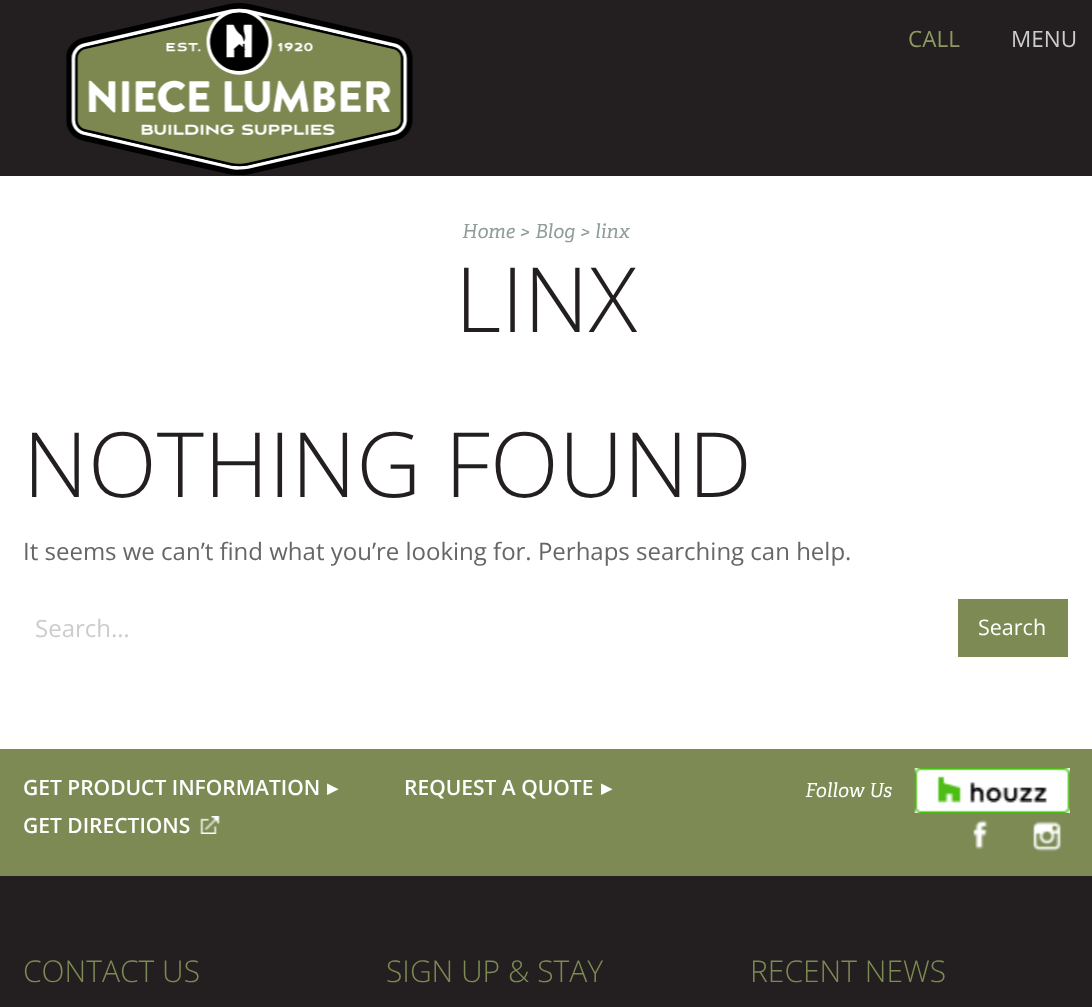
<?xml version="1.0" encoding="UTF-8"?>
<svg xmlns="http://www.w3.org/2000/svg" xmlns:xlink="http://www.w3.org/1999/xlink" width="1092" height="1007">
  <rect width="100%" height="100%" fill="#ffffff" />
  <rect width="1092" height="176" fill="#231f20" />
  <image x="66" y="3" width="347" height="172" xlink:href="image1.png" />
  <rect x="958" y="599" width="110" height="58" fill="#7d8a53" />
  <rect y="749" width="1092" height="127" fill="#7d8a53" />
  <image x="200" y="816" width="20" height="18" xlink:href="image2.png" />
  <image x="914" y="768" width="156" height="45" xlink:href="image3.png" />
  <image x="973" y="819" width="15" height="31" xlink:href="image4.png" />
  <image x="1032" y="821" width="30" height="31" xlink:href="image5.png" />
  <rect y="876" width="1092" height="131" fill="#231f20" />
  <text x="908" y="47" style="font-family: Open Sans; font-size: 22.5px; fill: #8f9a62">CALL</text>
  <text x="1011" y="47" style="font-family: Open Sans; font-size: 22.5px; fill: #cccccc">MENU</text>
  <text x="462" y="238" style="font-family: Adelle; font-size: 19.5px; font-style: italic; fill: #8f9e98">Home &gt; Blog &gt; linx</text>
  <text x="455" y="332" style="font-family: Open Sans; font-size: 90px; font-weight: 300; fill: #231f20">LINX</text>
  <text x="23" y="497" style="font-family: Open Sans; font-size: 90px; font-weight: 300; fill: #231f20">NOTHING FOUND</text>
  <text x="23" y="560" style="font-family: Open Sans; font-size: 24px; fill: #666666">It seems we can’t find what you’re looking for. Perhaps searching can help.</text>
  <text x="35" y="637" style="font-family: Open Sans; font-size: 24px; fill: #cccccc">Search…</text>
  <text x="978" y="635" style="font-family: Open Sans; font-size: 21.5px; fill: #ffffff">Search</text>
  <text x="23" y="795" style="font-family: Open Sans; font-size: 21px; font-weight: 600; fill: #ffffff">GET PRODUCT INFORMATION</text>
  <text x="327" y="795" style="font-family: DejaVu Sans; font-size: 21px; font-weight: bold; fill: #ffffff">▸</text>
  <text x="404" y="795" style="font-family: Open Sans; font-size: 21px; font-weight: 600; fill: #ffffff">REQUEST A QUOTE</text>
  <text x="601" y="795" style="font-family: DejaVu Sans; font-size: 21px; font-weight: bold; fill: #ffffff">▸</text>
  <text x="23" y="833" style="font-family: Open Sans; font-size: 21px; font-weight: 600; fill: #ffffff">GET DIRECTIONS</text>
  <text x="805" y="797" style="font-family: Adelle; font-size: 19.5px; font-style: italic; fill: #ffffff">Follow Us</text>
  <text x="23" y="982" style="font-family: Open Sans; font-size: 30px; font-weight: 300; fill: #7d8a53">CONTACT US</text>
  <text x="386" y="982" style="font-family: Open Sans; font-size: 30px; font-weight: 300; fill: #7d8a53">SIGN UP &amp; STAY</text>
  <text x="750" y="982" style="font-family: Open Sans; font-size: 30px; font-weight: 300; fill: #7d8a53">RECENT NEWS</text>
</svg>
